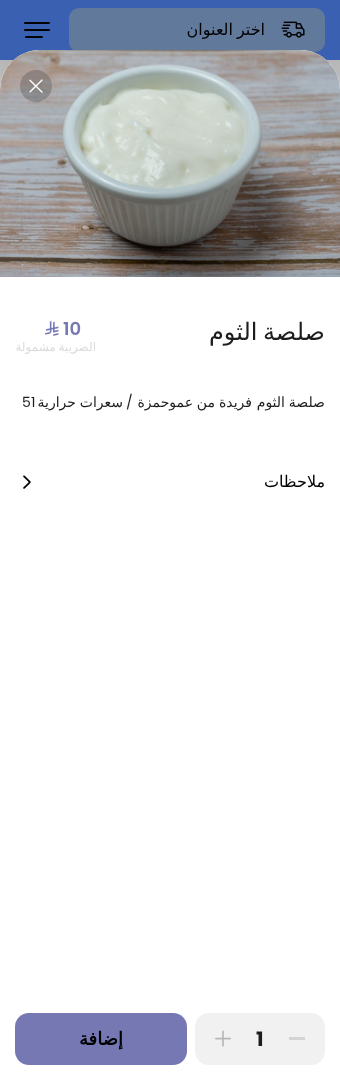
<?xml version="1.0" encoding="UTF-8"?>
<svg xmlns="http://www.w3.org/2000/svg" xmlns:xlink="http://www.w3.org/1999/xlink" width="340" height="1085">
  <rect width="100%" height="100%" fill="#bcbcbc" />
  <image x="339" y="89" width="1" height="1" xlink:href="image2.png" />
  <image x="0" y="89" width="1" height="1" xlink:href="image3.png" />
  <rect y="6" width="340" height="60" fill="#000000" fill-opacity="0.06" filter="blur(10px)" />
  <rect width="340" height="60" fill="#3a60b1" />
  <rect x="69" y="8" width="256" height="44" rx="10" fill="#61799b" />
  <image x="281" y="21" width="24" height="17" xlink:href="image1.png" />
  <rect x="24" y="22" width="26" height="2" rx="1" fill="#000102" />
  <rect x="24" y="29" width="26" height="2" rx="1" fill="#000102" />
  <rect x="25" y="36" width="18" height="2" rx="1" fill="#000102" />
  <path d="M 40 50 h 260 c 22 0 40 18 40 40 v 995 h -340 v -995 c 0 -22 18 -40 40 -40 z" fill="#ffffff" />
  <image x="0" y="50" width="340" height="227" xlink:href="image5.png" />
  <circle cx="36" cy="86" r="16" fill="#000000" fill-opacity="0.19" />
  <image x="29" y="79" width="14" height="14" xlink:href="image4.png" />
  <image x="45" y="320" width="14" height="16" xlink:href="image6.png" />
  <image x="23" y="475" width="8" height="14" xlink:href="image7.png" />
  <path d="M 209 1013 h 102 c 8 0 14 6 14 14 v 24 c 0 8 -6 14 -14 14 h -102 c -8 0 -14 -6 -14 -14 v -24 c 0 -8 6 -14 14 -14 z" fill="#f1f1f1" />
  <rect x="289" y="1037" width="16" height="3" fill="#d4d4d4" />
  <image x="215" y="1030" width="16" height="17" xlink:href="image8.png" />
  <rect x="15" y="1013" width="172" height="52" rx="14" fill="#7678b4" />
  <text x="265" y="35" word-spacing="-1" style="font-family: DejaVu Sans; font-size: 16px; direction: rtl; fill: #000102">اختر العنوان</text>
  <text x="325" y="340" word-spacing="-2" style="font-family: DejaVu Sans; font-size: 24px; direction: rtl; fill: #1d1d1d">صلصة الثوم</text>
  <text x="63" y="335" style="font-family: Poppins; font-size: 18px; font-weight: 600; fill: #7678b4">10</text>
  <text x="96" y="351" word-spacing="-1" style="font-family: DejaVu Sans; font-size: 12px; direction: rtl; fill: #dbdbdb">الضريبة مشمولة</text>
  <text x="325" y="407" style="font-family: DejaVu Sans; font-size: 14px; letter-spacing: 0.25px; direction: rtl; fill: #1d1d1d">صلصة</text>
  <text x="285" y="407" style="font-family: DejaVu Sans; font-size: 14px; letter-spacing: 0.25px; direction: rtl; fill: #1d1d1d">الثوم</text>
  <text x="252" y="407" style="font-family: DejaVu Sans; font-size: 14px; letter-spacing: 0.25px; direction: rtl; fill: #1d1d1d">فريدة</text>
  <text x="215" y="407" style="font-family: DejaVu Sans; font-size: 14px; letter-spacing: 0.25px; direction: rtl; fill: #1d1d1d">من</text>
  <text x="193" y="407" style="font-family: DejaVu Sans; font-size: 14px; letter-spacing: 0.25px; direction: rtl; fill: #1d1d1d">عموحمزة</text>
  <text x="133" y="407" style="font-family: Poppins; font-size: 14px; letter-spacing: 0.25px; direction: rtl; fill: #1d1d1d">/</text>
  <text x="123" y="407" style="font-family: DejaVu Sans; font-size: 14px; letter-spacing: 0.25px; direction: rtl; fill: #1d1d1d">سعرات</text>
  <text x="76" y="407" style="font-family: DejaVu Sans; font-size: 14px; letter-spacing: 0.25px; direction: rtl; fill: #1d1d1d">حرارية</text>
  <text x="22" y="407" style="font-family: Poppins; font-size: 14px; letter-spacing: 0.25px; fill: #1d1d1d">51</text>
  <text x="325" y="487" style="font-family: DejaVu Sans; font-size: 16px; direction: rtl; fill: #000102">ملاحظات</text>
  <text x="256" y="1046" style="font-family: Poppins; font-size: 20px; font-weight: bold; fill: #1d1d1d">1</text>
  <text x="123" y="1045" style="font-family: DejaVu Sans; font-size: 18px; font-weight: bold; direction: rtl; fill: #000102">إضافة</text>
</svg>
